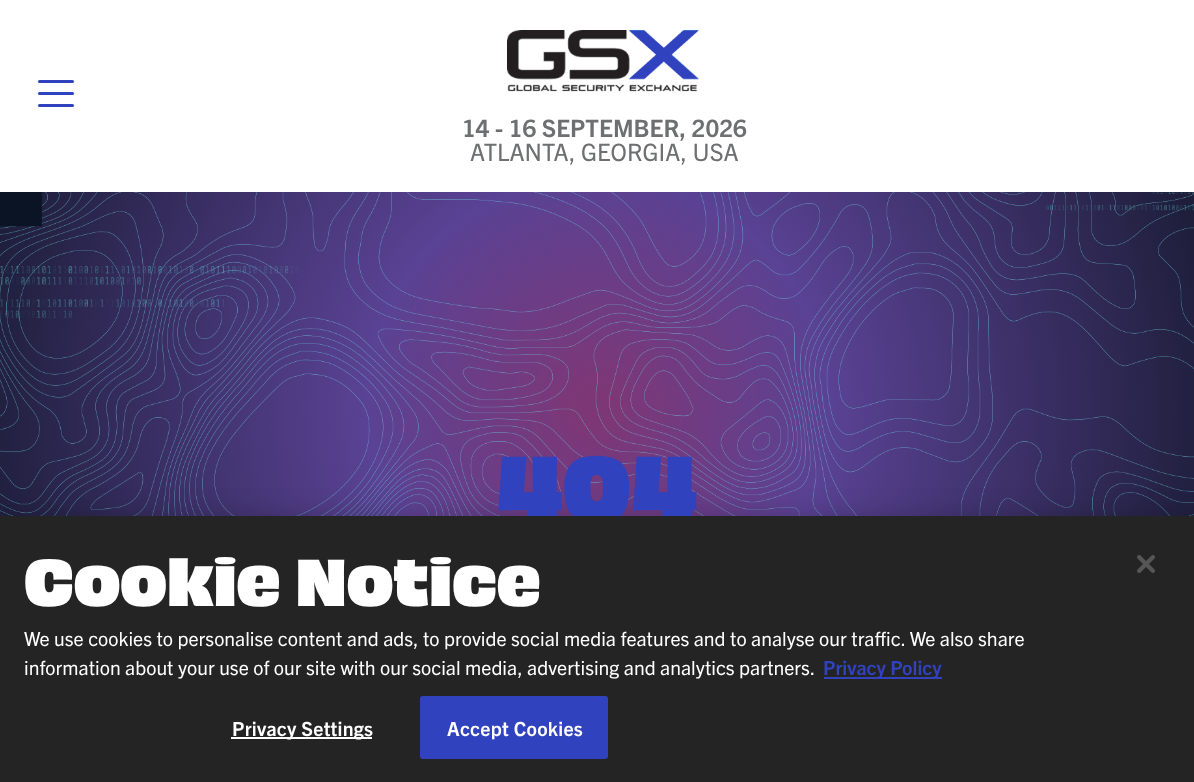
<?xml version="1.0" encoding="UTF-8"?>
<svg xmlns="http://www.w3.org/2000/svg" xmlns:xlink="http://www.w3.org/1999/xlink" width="1194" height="782">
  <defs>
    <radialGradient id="g1" gradientUnits="userSpaceOnUse" cx="597" cy="408" r="723"><stop offset="0.02" stop-color="#7e3776" /><stop offset="0.32" stop-color="#5a4294" /><stop offset="0.99" stop-color="#101626" /></radialGradient>
  </defs>
  <rect width="100%" height="100%" fill="#ffffff" />
  <rect x="38" y="92" width="36" height="3" rx="1.5" fill="#3142be" />
  <rect x="38" y="80" width="36" height="3" rx="1.5" fill="#3142be" />
  <rect x="38" y="104" width="36" height="3" rx="1.5" fill="#3142be" />
  <image x="507" y="30" width="192" height="62" xlink:href="image1.png" />
  <rect y="192" width="1194" height="324" fill="url(#g1)" />
  <image x="0" y="192" width="1194" height="324" xlink:href="image2.png" />
  <image x="0" y="192" width="1194" height="126" xlink:href="image3.png" />
  <rect y="516" width="1194" height="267" fill="#000000" fill-opacity="0.2" filter="blur(13.5px)" />
  <text x="462" y="137" style="font-family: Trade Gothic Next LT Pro; font-size: 24px; font-weight: bold; fill: #6e6f70">14 - 16 SEPTEMBER, 2026</text>
  <text x="470" y="161" style="font-family: Trade Gothic Next LT Pro; font-size: 24px; fill: #6e6f70">ATLANTA, GEORGIA, USA</text>
  <text x="496" y="522" style="font-family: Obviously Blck; font-size: 87px; font-weight: 600; fill: #3142be">404</text>
  <rect y="516" width="1194" height="266" fill="#242424" />
  <text x="24" y="606" style="font-family: Obviously Blck; font-size: 61.75px; font-weight: 600; fill: #ffffff">Cookie Notice</text>
  <text x="24" y="646" style="font-family: Trade Gothic Next LT Pro; font-size: 19.5px; fill: #ffffff">We use cookies to personalise content and ads, to provide social media features and to analyse our traffic. We also share</text>
  <text x="24" y="675" style="font-family: Trade Gothic Next LT Pro; font-size: 19.5px; fill: #ffffff">information about your use of our site with our social media, advertising and analytics partners.</text>
  <rect x="824" y="677" width="118" height="2" fill="#3142be" />
  <text x="823" y="675" style="font-family: Trade Gothic Next LT Pro; font-size: 19.5px; font-weight: bold; fill: #3142be">Privacy Policy</text>
  <rect x="231" y="737" width="141" height="2" fill="#ffffff" />
  <text x="232" y="736" style="font-family: Trade Gothic Next LT Pro; font-size: 19.5px; font-weight: bold; letter-spacing: 0.25px; fill: #ffffff">Privacy Settings</text>
  <rect x="421" y="697" width="186" height="61" rx="2" fill="#3142be" stroke="#3142be" stroke-width="2" />
  <text x="447" y="736" style="font-family: Trade Gothic Next LT Pro; font-size: 19.5px; font-weight: bold; letter-spacing: 0.25px; fill: #ffffff">Accept Cookies</text>
  <image x="1137" y="555" width="18" height="18" xlink:href="image4.png" />
</svg>
